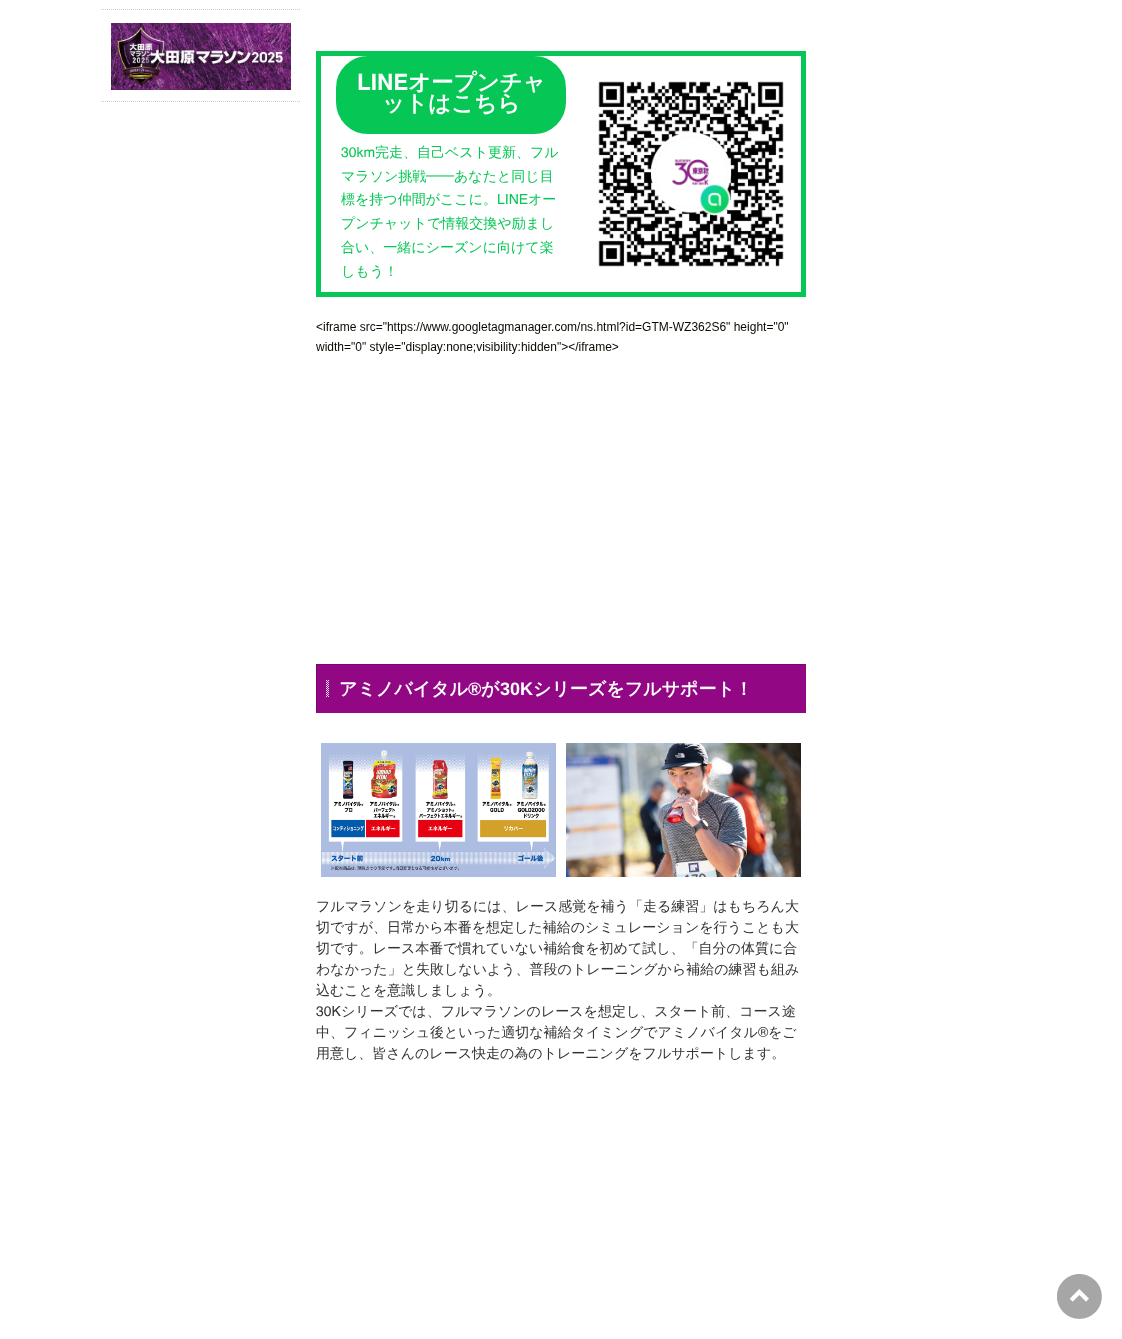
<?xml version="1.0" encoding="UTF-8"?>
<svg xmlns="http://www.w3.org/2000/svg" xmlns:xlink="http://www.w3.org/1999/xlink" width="1122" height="1339">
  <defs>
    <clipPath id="clip1"><rect x="316" y="664" width="490" height="49" /></clipPath>
  </defs>
  <rect width="100%" height="100%" fill="#ffffff" />
  <path d="M 101 9.5 h 200" fill="none" stroke="#cccccc" stroke-dasharray="1 1" />
  <path d="M 101 101.5 h 200" fill="none" stroke="#cccccc" stroke-dasharray="1 1" />
  <image x="111" y="23" width="180" height="67" xlink:href="image1.png" />
  <rect x="318.5" y="53.5" width="485" height="241" fill="none" stroke="#06c755" stroke-width="5" />
  <rect x="337" y="57" width="228" height="76" rx="31" fill="#06c755" stroke="#06c755" stroke-width="2" />
  <image x="598" y="81" width="186" height="186" xlink:href="image2.png" />
  <image x="316" y="322" width="472" height="32" xlink:href="image3.png" />
  <rect x="317" y="665" width="489" height="48" fill="#920783" />
  <image x="326" y="680" width="3" height="17" xlink:href="image4.png" />
  <g clip-path="url(#clip1)">
    <path d="M 217 565 h 688 v 247 h -688 z m 100 100 h 490 v 49 h -490 z" fill="#7c066f" fill-rule="evenodd" />
  </g>
  <image x="321" y="743" width="235" height="134" xlink:href="image5.png" />
  <image x="566" y="743" width="235" height="134" xlink:href="image6.png" />
  <image x="1057" y="1274" width="45" height="45" xlink:href="image7.png" />
  <text x="357" y="90" style="font-family: Helvetica; font-size: 22.5px; font-weight: bold; fill: #ffffff">LINE</text>
  <text x="408" y="90" style="font-family: WenQuanYi Zen Hei; font-size: 22.5px; font-weight: bold; fill: #ffffff">オープンチャ</text>
  <text x="382" y="111" style="font-family: WenQuanYi Zen Hei; font-size: 22.5px; font-weight: bold; fill: #ffffff">ットはこちら</text>
  <text x="341" y="157" style="font-family: Helvetica; font-size: 14px; fill: #06c755">30km</text>
  <text x="375" y="157" style="font-family: WenQuanYi Zen Hei; font-size: 14px; font-weight: 500; fill: #06c755">完走、自己ベスト更新、フル</text>
  <text x="341" y="181" style="font-family: WenQuanYi Zen Hei; font-size: 14px; font-weight: 500; fill: #06c755">マラソン挑戦</text>
  <text x="426" y="181" style="font-family: Helvetica; font-size: 14px; fill: #06c755">──</text>
  <text x="454" y="181" style="font-family: WenQuanYi Zen Hei; font-size: 14px; font-weight: 500; fill: #06c755">あなたと同じ目</text>
  <text x="341" y="204" style="font-family: WenQuanYi Zen Hei; font-size: 14px; font-weight: 500; fill: #06c755">標を持つ仲間がここに。</text>
  <text x="497" y="204" style="font-family: Helvetica; font-size: 14px; fill: #06c755">LINE</text>
  <text x="528" y="204" style="font-family: WenQuanYi Zen Hei; font-size: 14px; font-weight: 500; fill: #06c755">オー</text>
  <text x="341" y="228" style="font-family: WenQuanYi Zen Hei; font-size: 14px; font-weight: 500; fill: #06c755">プンチャットで情報交換や励まし</text>
  <text x="341" y="252" style="font-family: WenQuanYi Zen Hei; font-size: 14px; font-weight: 500; fill: #06c755">合い、一緒にシーズンに向けて楽</text>
  <text x="341" y="276" style="font-family: WenQuanYi Zen Hei; font-size: 14px; font-weight: 500; fill: #06c755">しもう！</text>
  <text x="339" y="695" style="font-family: WenQuanYi Zen Hei; font-size: 18px; font-weight: bold; fill: #ffffff">アミノバイタル</text>
  <text x="468" y="695" style="font-family: Liberation Sans; font-size: 18px; font-weight: bold; fill: #ffffff">®</text>
  <text x="481" y="695" style="font-family: WenQuanYi Zen Hei; font-size: 18px; font-weight: bold; fill: #ffffff">が</text>
  <text x="500" y="695" style="font-family: Liberation Sans; font-size: 18px; font-weight: bold; fill: #ffffff">30K</text>
  <text x="533" y="695" style="font-family: WenQuanYi Zen Hei; font-size: 18px; font-weight: bold; fill: #ffffff">シリーズをフルサポート！</text>
  <text x="316" y="911" style="font-family: WenQuanYi Zen Hei; font-size: 14px; font-weight: 500; fill: #333333">フルマラソンを走り切るには、レース感覚を補う「走る練習」はもちろん大</text>
  <text x="316" y="932" style="font-family: WenQuanYi Zen Hei; font-size: 14px; font-weight: 500; fill: #333333">切ですが、日常から本番を想定した補給のシミュレーションを行うことも大</text>
  <text x="316" y="953" style="font-family: WenQuanYi Zen Hei; font-size: 14px; font-weight: 500; fill: #333333">切です。レース本番で慣れていない補給食を初めて試し、「自分の体質に合</text>
  <text x="316" y="974" style="font-family: WenQuanYi Zen Hei; font-size: 14px; font-weight: 500; fill: #333333">わなかった」と失敗しないよう、普段のトレーニングから補給の練習も組み</text>
  <text x="316" y="995" style="font-family: WenQuanYi Zen Hei; font-size: 14px; font-weight: 500; fill: #333333">込むことを意識しましょう。</text>
  <text x="316" y="1016" style="font-family: Helvetica; font-size: 14px; fill: #333333">30K</text>
  <text x="341" y="1016" style="font-family: WenQuanYi Zen Hei; font-size: 14px; font-weight: 500; fill: #333333">シリーズでは、フルマラソンのレースを想定し、スタート前、コース途</text>
  <text x="316" y="1037" style="font-family: WenQuanYi Zen Hei; font-size: 14px; font-weight: 500; fill: #333333">中、フィニッシュ後といった適切な補給タイミングでアミノバイタル</text>
  <text x="758" y="1037" style="font-family: Helvetica; font-size: 14px; fill: #333333">®</text>
  <text x="768" y="1037" style="font-family: WenQuanYi Zen Hei; font-size: 14px; font-weight: 500; fill: #333333">をご</text>
  <text x="316" y="1058" style="font-family: WenQuanYi Zen Hei; font-size: 14px; font-weight: 500; fill: #333333">用意し、皆さんのレース快走の為のトレーニングをフルサポートします。</text>
</svg>
